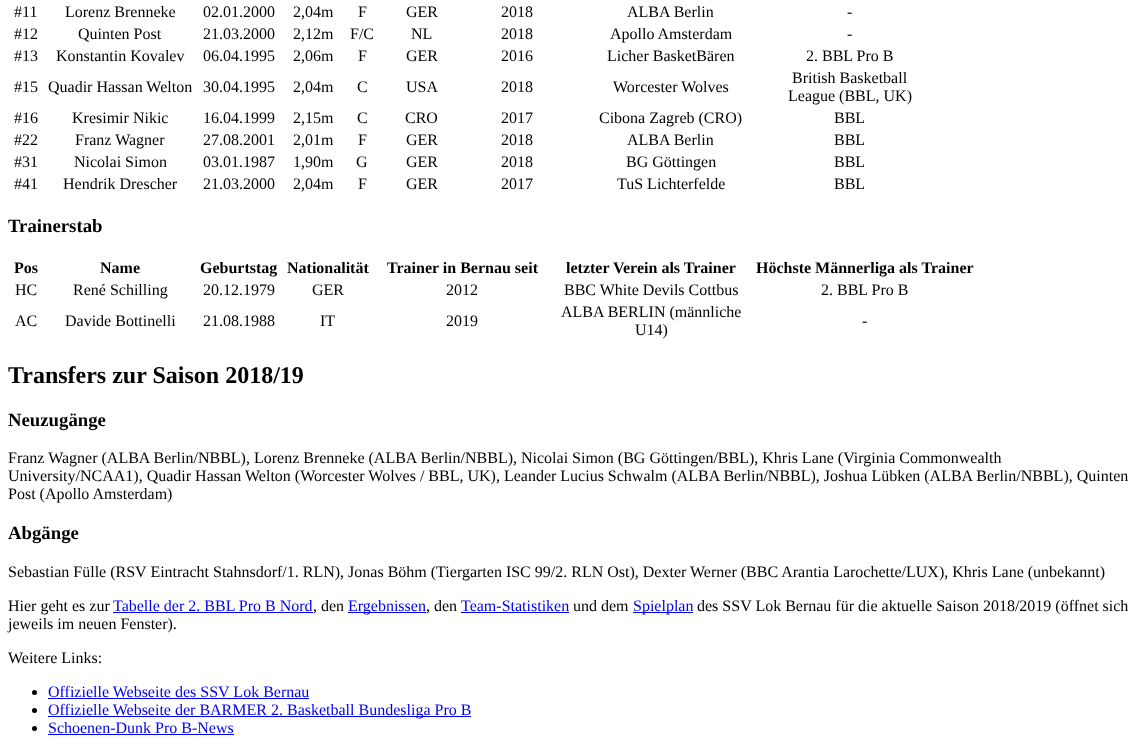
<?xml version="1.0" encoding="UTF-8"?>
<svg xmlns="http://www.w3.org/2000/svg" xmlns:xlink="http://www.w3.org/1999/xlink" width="1137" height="741">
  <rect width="100%" height="100%" fill="#ffffff" />
  <rect x="113" y="612" width="200" height="1" fill="#0000ee" />
  <rect x="348" y="612" width="78" height="1" fill="#0000ee" />
  <rect x="461" y="612" width="108" height="1" fill="#0000ee" />
  <rect x="633" y="612" width="60" height="1" fill="#0000ee" />
  <circle cx="34.5" cy="692.5" r="2.5" fill="#000000" />
  <rect x="48" y="698" width="261" height="1" fill="#0000ee" />
  <circle cx="34.5" cy="710.5" r="2.5" fill="#000000" />
  <rect x="48" y="716" width="423" height="1" fill="#0000ee" />
  <circle cx="34.5" cy="728.5" r="2.5" fill="#000000" />
  <rect x="48" y="734" width="186" height="1" fill="#0000ee" />
  <text x="14" y="17" style="font-family: Liberation Serif; font-size: 16px; fill: #000000">#11</text>
  <text x="65" y="17" style="font-family: Liberation Serif; font-size: 16px; fill: #000000">Lorenz Brenneke</text>
  <text x="203" y="17" style="font-family: Liberation Serif; font-size: 16px; fill: #000000">02.01.2000</text>
  <text x="293" y="17" style="font-family: Liberation Serif; font-size: 16px; fill: #000000">2,04m</text>
  <text x="358" y="17" style="font-family: Liberation Serif; font-size: 16px; fill: #000000">F</text>
  <text x="406" y="17" style="font-family: Liberation Serif; font-size: 16px; fill: #000000">GER</text>
  <text x="501" y="17" style="font-family: Liberation Serif; font-size: 16px; fill: #000000">2018</text>
  <text x="627" y="17" style="font-family: Liberation Serif; font-size: 16px; fill: #000000">ALBA Berlin</text>
  <text x="847" y="17" style="font-family: Liberation Serif; font-size: 16px; fill: #000000">-</text>
  <text x="14" y="39" style="font-family: Liberation Serif; font-size: 16px; fill: #000000">#12</text>
  <text x="78" y="39" style="font-family: Liberation Serif; font-size: 16px; fill: #000000">Quinten Post</text>
  <text x="203" y="39" style="font-family: Liberation Serif; font-size: 16px; fill: #000000">21.03.2000</text>
  <text x="293" y="39" style="font-family: Liberation Serif; font-size: 16px; fill: #000000">2,12m</text>
  <text x="350" y="39" style="font-family: Liberation Serif; font-size: 16px; fill: #000000">F/C</text>
  <text x="411" y="39" style="font-family: Liberation Serif; font-size: 16px; fill: #000000">NL</text>
  <text x="501" y="39" style="font-family: Liberation Serif; font-size: 16px; fill: #000000">2018</text>
  <text x="610" y="39" style="font-family: Liberation Serif; font-size: 16px; fill: #000000">Apollo Amsterdam</text>
  <text x="847" y="39" style="font-family: Liberation Serif; font-size: 16px; fill: #000000">-</text>
  <text x="14" y="61" style="font-family: Liberation Serif; font-size: 16px; fill: #000000">#13</text>
  <text x="56" y="61" style="font-family: Liberation Serif; font-size: 16px; fill: #000000">Konstantin Kovalev</text>
  <text x="203" y="61" style="font-family: Liberation Serif; font-size: 16px; fill: #000000">06.04.1995</text>
  <text x="293" y="61" style="font-family: Liberation Serif; font-size: 16px; fill: #000000">2,06m</text>
  <text x="358" y="61" style="font-family: Liberation Serif; font-size: 16px; fill: #000000">F</text>
  <text x="406" y="61" style="font-family: Liberation Serif; font-size: 16px; fill: #000000">GER</text>
  <text x="501" y="61" style="font-family: Liberation Serif; font-size: 16px; fill: #000000">2016</text>
  <text x="607" y="61" style="font-family: Liberation Serif; font-size: 16px; fill: #000000">Licher BasketBären</text>
  <text x="806" y="61" style="font-family: Liberation Serif; font-size: 16px; fill: #000000">2. BBL Pro B</text>
  <text x="14" y="92" style="font-family: Liberation Serif; font-size: 16px; fill: #000000">#15</text>
  <text x="48" y="92" style="font-family: Liberation Serif; font-size: 16px; fill: #000000">Quadir Hassan Welton</text>
  <text x="203" y="92" style="font-family: Liberation Serif; font-size: 16px; fill: #000000">30.04.1995</text>
  <text x="293" y="92" style="font-family: Liberation Serif; font-size: 16px; fill: #000000">2,04m</text>
  <text x="357" y="92" style="font-family: Liberation Serif; font-size: 16px; fill: #000000">C</text>
  <text x="406" y="92" style="font-family: Liberation Serif; font-size: 16px; fill: #000000">USA</text>
  <text x="501" y="92" style="font-family: Liberation Serif; font-size: 16px; fill: #000000">2018</text>
  <text x="613" y="92" style="font-family: Liberation Serif; font-size: 16px; fill: #000000">Worcester Wolves</text>
  <text x="792" y="83" style="font-family: Liberation Serif; font-size: 16px; fill: #000000">British Basketball</text>
  <text x="788" y="101" style="font-family: Liberation Serif; font-size: 16px; fill: #000000">League (BBL, UK)</text>
  <text x="14" y="123" style="font-family: Liberation Serif; font-size: 16px; fill: #000000">#16</text>
  <text x="72" y="123" style="font-family: Liberation Serif; font-size: 16px; fill: #000000">Kresimir Nikic</text>
  <text x="203" y="123" style="font-family: Liberation Serif; font-size: 16px; fill: #000000">16.04.1999</text>
  <text x="293" y="123" style="font-family: Liberation Serif; font-size: 16px; fill: #000000">2,15m</text>
  <text x="357" y="123" style="font-family: Liberation Serif; font-size: 16px; fill: #000000">C</text>
  <text x="405" y="123" style="font-family: Liberation Serif; font-size: 16px; fill: #000000">CRO</text>
  <text x="501" y="123" style="font-family: Liberation Serif; font-size: 16px; fill: #000000">2017</text>
  <text x="599" y="123" style="font-family: Liberation Serif; font-size: 16px; fill: #000000">Cibona Zagreb (CRO)</text>
  <text x="834" y="123" style="font-family: Liberation Serif; font-size: 16px; fill: #000000">BBL</text>
  <text x="14" y="145" style="font-family: Liberation Serif; font-size: 16px; fill: #000000">#22</text>
  <text x="75" y="145" style="font-family: Liberation Serif; font-size: 16px; fill: #000000">Franz Wagner</text>
  <text x="203" y="145" style="font-family: Liberation Serif; font-size: 16px; fill: #000000">27.08.2001</text>
  <text x="293" y="145" style="font-family: Liberation Serif; font-size: 16px; fill: #000000">2,01m</text>
  <text x="358" y="145" style="font-family: Liberation Serif; font-size: 16px; fill: #000000">F</text>
  <text x="406" y="145" style="font-family: Liberation Serif; font-size: 16px; fill: #000000">GER</text>
  <text x="501" y="145" style="font-family: Liberation Serif; font-size: 16px; fill: #000000">2018</text>
  <text x="627" y="145" style="font-family: Liberation Serif; font-size: 16px; fill: #000000">ALBA Berlin</text>
  <text x="834" y="145" style="font-family: Liberation Serif; font-size: 16px; fill: #000000">BBL</text>
  <text x="14" y="167" style="font-family: Liberation Serif; font-size: 16px; fill: #000000">#31</text>
  <text x="74" y="167" style="font-family: Liberation Serif; font-size: 16px; fill: #000000">Nicolai Simon</text>
  <text x="203" y="167" style="font-family: Liberation Serif; font-size: 16px; fill: #000000">03.01.1987</text>
  <text x="293" y="167" style="font-family: Liberation Serif; font-size: 16px; fill: #000000">1,90m</text>
  <text x="356" y="167" style="font-family: Liberation Serif; font-size: 16px; fill: #000000">G</text>
  <text x="406" y="167" style="font-family: Liberation Serif; font-size: 16px; fill: #000000">GER</text>
  <text x="501" y="167" style="font-family: Liberation Serif; font-size: 16px; fill: #000000">2018</text>
  <text x="626" y="167" style="font-family: Liberation Serif; font-size: 16px; fill: #000000">BG Göttingen</text>
  <text x="834" y="167" style="font-family: Liberation Serif; font-size: 16px; fill: #000000">BBL</text>
  <text x="14" y="189" style="font-family: Liberation Serif; font-size: 16px; fill: #000000">#41</text>
  <text x="63" y="189" style="font-family: Liberation Serif; font-size: 16px; fill: #000000">Hendrik Drescher</text>
  <text x="203" y="189" style="font-family: Liberation Serif; font-size: 16px; fill: #000000">21.03.2000</text>
  <text x="293" y="189" style="font-family: Liberation Serif; font-size: 16px; fill: #000000">2,04m</text>
  <text x="358" y="189" style="font-family: Liberation Serif; font-size: 16px; fill: #000000">F</text>
  <text x="406" y="189" style="font-family: Liberation Serif; font-size: 16px; fill: #000000">GER</text>
  <text x="501" y="189" style="font-family: Liberation Serif; font-size: 16px; fill: #000000">2017</text>
  <text x="617" y="189" style="font-family: Liberation Serif; font-size: 16px; fill: #000000">TuS Lichterfelde</text>
  <text x="834" y="189" style="font-family: Liberation Serif; font-size: 16px; fill: #000000">BBL</text>
  <text x="8" y="232" style="font-family: Liberation Serif; font-size: 18.75px; font-weight: bold; fill: #000000">Trainerstab</text>
  <text x="14" y="273" style="font-family: Liberation Serif; font-size: 16px; font-weight: bold; fill: #000000">Pos</text>
  <text x="100" y="273" style="font-family: Liberation Serif; font-size: 16px; font-weight: bold; fill: #000000">Name</text>
  <text x="200" y="273" style="font-family: Liberation Serif; font-size: 16px; font-weight: bold; fill: #000000">Geburtstag</text>
  <text x="287" y="273" style="font-family: Liberation Serif; font-size: 16px; font-weight: bold; fill: #000000">Nationalität</text>
  <text x="387" y="273" style="font-family: Liberation Serif; font-size: 16px; font-weight: bold; fill: #000000">Trainer in Bernau seit</text>
  <text x="566" y="273" style="font-family: Liberation Serif; font-size: 16px; font-weight: bold; fill: #000000">letzter Verein als Trainer</text>
  <text x="756" y="273" style="font-family: Liberation Serif; font-size: 16px; font-weight: bold; fill: #000000">Höchste Männerliga als Trainer</text>
  <text x="15" y="295" style="font-family: Liberation Serif; font-size: 16px; fill: #000000">HC</text>
  <text x="73" y="295" style="font-family: Liberation Serif; font-size: 16px; fill: #000000">René Schilling</text>
  <text x="203" y="295" style="font-family: Liberation Serif; font-size: 16px; fill: #000000">20.12.1979</text>
  <text x="312" y="295" style="font-family: Liberation Serif; font-size: 16px; fill: #000000">GER</text>
  <text x="446" y="295" style="font-family: Liberation Serif; font-size: 16px; fill: #000000">2012</text>
  <text x="564" y="295" style="font-family: Liberation Serif; font-size: 16px; fill: #000000">BBC White Devils Cottbus</text>
  <text x="821" y="295" style="font-family: Liberation Serif; font-size: 16px; fill: #000000">2. BBL Pro B</text>
  <text x="15" y="326" style="font-family: Liberation Serif; font-size: 16px; fill: #000000">AC</text>
  <text x="65" y="326" style="font-family: Liberation Serif; font-size: 16px; fill: #000000">Davide Bottinelli</text>
  <text x="203" y="326" style="font-family: Liberation Serif; font-size: 16px; fill: #000000">21.08.1988</text>
  <text x="320" y="326" style="font-family: Liberation Serif; font-size: 16px; fill: #000000">IT</text>
  <text x="446" y="326" style="font-family: Liberation Serif; font-size: 16px; fill: #000000">2019</text>
  <text x="561" y="317" style="font-family: Liberation Serif; font-size: 16px; fill: #000000">ALBA BERLIN (männliche</text>
  <text x="635" y="335" style="font-family: Liberation Serif; font-size: 16px; fill: #000000">U14)</text>
  <text x="862" y="326" style="font-family: Liberation Serif; font-size: 16px; fill: #000000">-</text>
  <text x="8" y="383" style="font-family: Liberation Serif; font-size: 24px; font-weight: bold; fill: #000000">Transfers zur Saison 2018/19</text>
  <text x="8" y="426" style="font-family: Liberation Serif; font-size: 18.75px; font-weight: bold; fill: #000000">Neuzugänge</text>
  <text x="8" y="463" style="font-family: Liberation Serif; font-size: 16px; fill: #000000">Franz Wagner (ALBA Berlin/NBBL), Lorenz Brenneke (ALBA Berlin/NBBL), Nicolai Simon (BG Göttingen/BBL), Khris Lane (Virginia Commonwealth</text>
  <text x="8" y="481" style="font-family: Liberation Serif; font-size: 16px; fill: #000000">University/NCAA1), Quadir Hassan Welton (Worcester Wolves / BBL, UK), Leander Lucius Schwalm (ALBA Berlin/NBBL), Joshua Lübken (ALBA Berlin/NBBL), Quinten</text>
  <text x="8" y="499" style="font-family: Liberation Serif; font-size: 16px; fill: #000000">Post (Apollo Amsterdam)</text>
  <text x="8" y="539" style="font-family: Liberation Serif; font-size: 18.75px; font-weight: bold; fill: #000000">Abgänge</text>
  <text x="8" y="577" style="font-family: Liberation Serif; font-size: 16px; fill: #000000">Sebastian Fülle (RSV Eintracht Stahnsdorf/1. RLN), Jonas Böhm (Tiergarten ISC 99/2. RLN Ost), Dexter Werner (BBC Arantia Larochette/LUX), Khris Lane (unbekannt)</text>
  <text x="8" y="611" style="font-family: Liberation Serif; font-size: 16px; fill: #000000">Hier geht es zur</text>
  <text x="113" y="611" style="font-family: Liberation Serif; font-size: 16px; fill: #0000ee">Tabelle der 2. BBL Pro B Nord</text>
  <text x="313" y="611" style="font-family: Liberation Serif; font-size: 16px; fill: #000000">, den</text>
  <text x="348" y="611" style="font-family: Liberation Serif; font-size: 16px; fill: #0000ee">Ergebnissen</text>
  <text x="426" y="611" style="font-family: Liberation Serif; font-size: 16px; fill: #000000">, den</text>
  <text x="461" y="611" style="font-family: Liberation Serif; font-size: 16px; fill: #0000ee">Team-Statistiken</text>
  <text x="573" y="611" style="font-family: Liberation Serif; font-size: 16px; fill: #000000">und dem</text>
  <text x="633" y="611" style="font-family: Liberation Serif; font-size: 16px; fill: #0000ee">Spielplan</text>
  <text x="697" y="611" style="font-family: Liberation Serif; font-size: 16px; fill: #000000">des SSV Lok Bernau für die aktuelle Saison 2018/2019 (öffnet sich</text>
  <text x="8" y="629" style="font-family: Liberation Serif; font-size: 16px; fill: #000000">jeweils im neuen Fenster).</text>
  <text x="8" y="663" style="font-family: Liberation Serif; font-size: 16px; fill: #000000">Weitere Links:</text>
  <text x="48" y="697" style="font-family: Liberation Serif; font-size: 16px; fill: #0000ee">Offizielle Webseite des SSV Lok Bernau</text>
  <text x="48" y="715" style="font-family: Liberation Serif; font-size: 16px; fill: #0000ee">Offizielle Webseite der BARMER 2. Basketball Bundesliga Pro B</text>
  <text x="48" y="733" style="font-family: Liberation Serif; font-size: 16px; fill: #0000ee">Schoenen-Dunk Pro B-News</text>
</svg>
